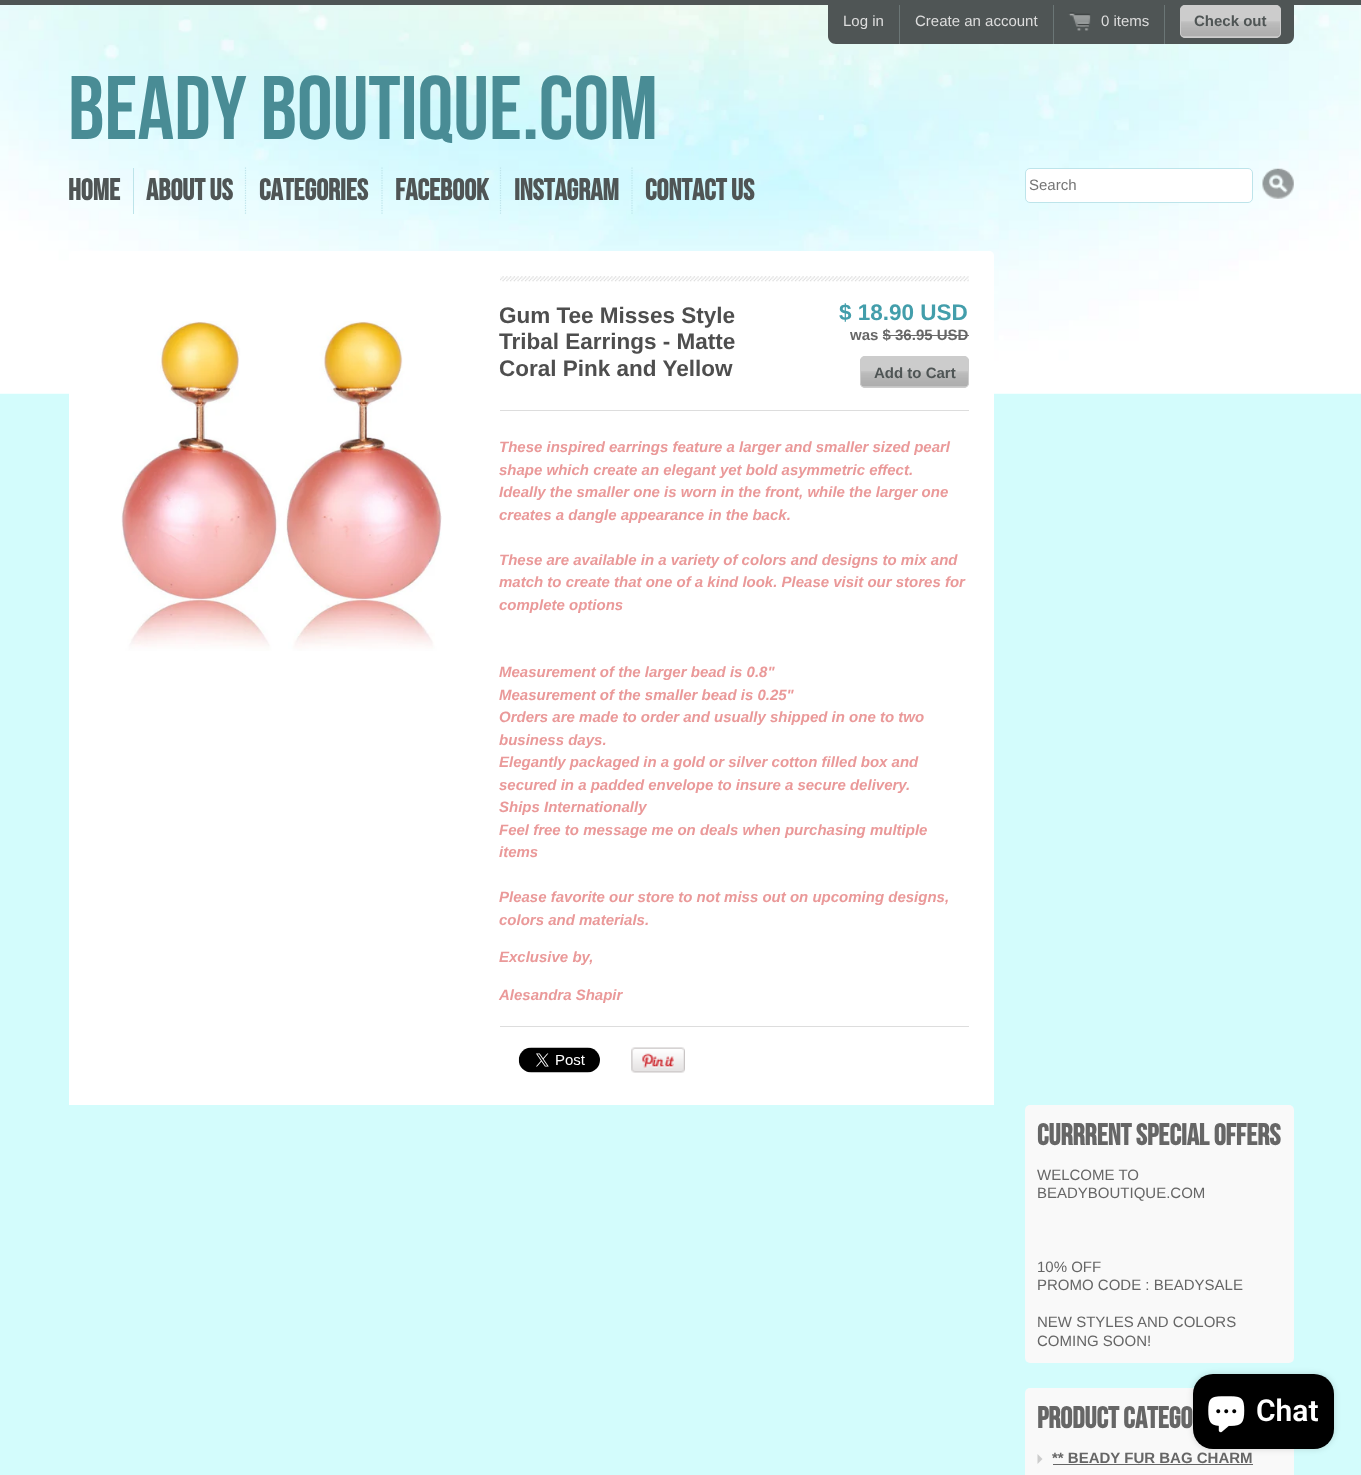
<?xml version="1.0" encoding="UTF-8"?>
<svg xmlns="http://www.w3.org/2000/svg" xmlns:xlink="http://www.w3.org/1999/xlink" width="1361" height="1475">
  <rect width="100%" height="100%" fill="#d3fcfc" />
  <image x="0" y="5" width="1361" height="389" xlink:href="image1.png" />
  <rect width="1361" height="5" fill="#4f5555" />
  <path d="M 828 5 h 466 v 31 c 0 4.5 -3.5 8 -8 8 h -450 c -4.5 0 -8 -3.5 -8 -8 z" fill="#4f5555" />
  <rect x="899" y="5" width="1" height="39" fill="#6b7676" />
  <rect x="1053" y="5" width="1" height="39" fill="#6b7676" />
  <rect x="1164" y="5" width="1" height="39" fill="#6b7676" />
  <image x="1068" y="12" width="23" height="19" xlink:href="image2.png" />
  <rect x="1180" y="5" width="101" height="33" rx="5" fill="#cccccc" />
  <image x="1180" y="21" width="101" height="16" xlink:href="image3.png" />
  <rect x="1180.5" y="5.5" width="100" height="32" rx="4.5" fill="none" stroke="#cccccc" />
  <rect x="133" y="168" width="1" height="46" fill="#bde4ea" />
  <path d="M 245.5 167.5 v 46.5" fill="none" stroke="#bde4ea" stroke-width="1.2" stroke-dasharray="1.25 1.25" />
  <path d="M 382 167.5 v 46.5" fill="none" stroke="#bde4ea" stroke-width="1.2" stroke-dasharray="1.25 1.25" />
  <path d="M 500.5 167.5 v 46.5" fill="none" stroke="#bde4ea" stroke-width="1.2" stroke-dasharray="1.25 1.25" />
  <path d="M 632 167.5 v 46.5" fill="none" stroke="#bde4ea" stroke-width="1.2" stroke-dasharray="1.25 1.25" />
  <rect x="1025.5" y="168.5" width="227" height="34" rx="4.5" fill="#ffffff" stroke="#bde4ea" />
  <image x="1262" y="168" width="32" height="31" xlink:href="image4.png" />
  <path d="M 74 251 h 915 c 3 0 5 2 5 5 v 849 h -925 v -849 c 0 -3 2 -5 5 -5 z" fill="#ffffff" />
  <image x="121" y="321" width="321" height="330" xlink:href="image5.png" />
  <image x="500" y="276" width="469" height="6" xlink:href="image6.png" />
  <rect x="500" y="410" width="469" height="1" fill="#dddddd" />
  <rect x="860" y="356" width="109" height="32" rx="5" fill="#cccccc" />
  <image x="860" y="371" width="109" height="16" xlink:href="image7.png" />
  <rect x="860.5" y="356.5" width="108" height="31" rx="4.5" fill="none" stroke="#cccccc" />
  <rect x="500" y="1026" width="469" height="1" fill="#dddddd" />
  <image x="518" y="1047" width="82" height="26" xlink:href="image8.png" />
  <image x="631" y="1047" width="54" height="26" xlink:href="image9.png" />
  <rect x="1025" y="1105" width="269" height="258" rx="5" fill="#f9f9f9" />
  <rect x="1025" y="1388" width="269" height="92" rx="5" fill="#f9f9f9" />
  <path d="M 1037.5 1464 v -10 l 5 5 z" fill="#cccccc" />
  <rect x="1053" y="1464" width="200" height="1" fill="#666666" />
  <rect x="1193" y="1374" width="141" height="75" rx="20" fill="#000000" fill-opacity="0.15" filter="blur(3px)" />
  <rect x="1193" y="1374" width="141" height="75" rx="20" fill="#000000" />
  <image x="1208" y="1396" width="37" height="37" xlink:href="image10.png" />
  <text x="843" y="26" style="font-family: Liberation Sans; font-size: 15px; fill: #dddddd">Log in</text>
  <text x="915" y="26" style="font-family: Liberation Sans; font-size: 15px; fill: #dddddd">Create an account</text>
  <text x="1101" y="26" style="font-family: Liberation Sans; font-size: 15px; fill: #dddddd">0 items</text>
  <text x="1194" y="26" style="font-family: Liberation Sans; font-size: 15px; font-weight: bold; fill: #4f5555">Check out</text>
  <text x="68" y="139" style="font-family: Bebas Neue; font-size: 90px; fill: #498c95">Beady Boutique.com</text>
  <text x="68" y="200" style="font-family: Bebas Neue; font-size: 30px; font-weight: bold; fill: #4f5555">Home</text>
  <text x="146" y="200" style="font-family: Bebas Neue; font-size: 30px; font-weight: bold; fill: #4f5555">About Us</text>
  <text x="259" y="200" style="font-family: Bebas Neue; font-size: 30px; font-weight: bold; fill: #4f5555">Categories</text>
  <text x="395" y="200" style="font-family: Bebas Neue; font-size: 30px; font-weight: bold; fill: #4f5555">Facebook</text>
  <text x="514" y="200" style="font-family: Bebas Neue; font-size: 30px; font-weight: bold; fill: #4f5555">Instagram</text>
  <text x="645" y="200" style="font-family: Bebas Neue; font-size: 30px; font-weight: bold; fill: #4f5555">Contact Us</text>
  <text x="1029" y="190" style="font-family: Liberation Sans; font-size: 15px; fill: #757575">Search</text>
  <text x="499" y="323" style="font-family: Liberation Sans; font-size: 22.5px; font-weight: bold; fill: #4e4e4e">Gum Tee Misses Style</text>
  <text x="499" y="349" style="font-family: Liberation Sans; font-size: 22.5px; font-weight: bold; fill: #4e4e4e">Tribal Earrings - Matte</text>
  <text x="499" y="376" style="font-family: Liberation Sans; font-size: 22.5px; font-weight: bold; fill: #4e4e4e">Coral Pink and Yellow</text>
  <text x="839" y="320" style="font-family: Liberation Sans; font-size: 22.5px; font-weight: bold; fill: #439eab">$ 18.90 USD</text>
  <text x="850" y="340" style="font-family: Liberation Sans; font-size: 15px; font-weight: bold; fill: #666666">was $ 36.95 USD</text>
  <rect x="883" y="335" width="86" height="1" fill="#6a6a6a" />
  <text x="874" y="378" style="font-family: Liberation Sans; font-size: 15px; font-weight: bold; fill: #4f5555">Add to Cart</text>
  <text x="499" y="452" style="font-family: Liberation Sans; font-size: 15px; font-weight: bold; font-style: italic; fill: #ea9999">These inspired earrings feature a larger and smaller sized pearl</text>
  <text x="499" y="475" style="font-family: Liberation Sans; font-size: 15px; font-weight: bold; font-style: italic; fill: #ea9999">shape which create an elegant yet bold asymmetric effect.</text>
  <text x="499" y="497" style="font-family: Liberation Sans; font-size: 15px; font-weight: bold; font-style: italic; fill: #ea9999">Ideally the smaller one is worn in the front, while the larger one</text>
  <text x="499" y="520" style="font-family: Liberation Sans; font-size: 15px; font-weight: bold; font-style: italic; fill: #ea9999">creates a dangle appearance in the back.</text>
  <text x="499" y="565" style="font-family: Liberation Sans; font-size: 15px; font-weight: bold; font-style: italic; fill: #ea9999">These are available in a variety of colors and designs to mix and</text>
  <text x="499" y="587" style="font-family: Liberation Sans; font-size: 15px; font-weight: bold; font-style: italic; fill: #ea9999">match to create that one of a kind look. Please visit our stores for</text>
  <text x="499" y="610" style="font-family: Liberation Sans; font-size: 15px; font-weight: bold; font-style: italic; fill: #ea9999">complete options</text>
  <text x="499" y="677" style="font-family: Liberation Sans; font-size: 15px; font-weight: bold; font-style: italic; fill: #ea9999">Measurement of the larger bead is 0.8"</text>
  <text x="499" y="700" style="font-family: Liberation Sans; font-size: 15px; font-weight: bold; font-style: italic; fill: #ea9999">Measurement of the smaller bead is 0.25"</text>
  <text x="499" y="722" style="font-family: Liberation Sans; font-size: 15px; font-weight: bold; font-style: italic; fill: #ea9999">Orders are made to order and usually shipped in one to two</text>
  <text x="499" y="745" style="font-family: Liberation Sans; font-size: 15px; font-weight: bold; font-style: italic; fill: #ea9999">business days.</text>
  <text x="499" y="767" style="font-family: Liberation Sans; font-size: 15px; font-weight: bold; font-style: italic; fill: #ea9999">Elegantly packaged in a gold or silver cotton filled box and</text>
  <text x="499" y="790" style="font-family: Liberation Sans; font-size: 15px; font-weight: bold; font-style: italic; fill: #ea9999">secured in a padded envelope to insure a secure delivery.</text>
  <text x="499" y="812" style="font-family: Liberation Sans; font-size: 15px; font-weight: bold; font-style: italic; fill: #ea9999">Ships Internationally</text>
  <text x="499" y="835" style="font-family: Liberation Sans; font-size: 15px; font-weight: bold; font-style: italic; fill: #ea9999">Feel free to message me on deals when purchasing multiple</text>
  <text x="499" y="857" style="font-family: Liberation Sans; font-size: 15px; font-weight: bold; font-style: italic; fill: #ea9999">items</text>
  <text x="499" y="902" style="font-family: Liberation Sans; font-size: 15px; font-weight: bold; font-style: italic; fill: #ea9999">Please favorite our store to not miss out on upcoming designs,</text>
  <text x="499" y="925" style="font-family: Liberation Sans; font-size: 15px; font-weight: bold; font-style: italic; fill: #ea9999">colors and materials.</text>
  <text x="499" y="962" style="font-family: Liberation Sans; font-size: 15px; font-weight: bold; font-style: italic; fill: #ea9999">Exclusive by,</text>
  <text x="499" y="1000" style="font-family: Liberation Sans; font-size: 15px; font-weight: bold; font-style: italic; fill: #ea9999">Alesandra Shapir</text>
  <text x="1037" y="1145" style="font-family: Bebas Neue; font-size: 30px; font-weight: bold; fill: #666666">CURRRENT SPECIAL OFFERS</text>
  <text x="1037" y="1180" style="font-family: Liberation Sans; font-size: 15px; fill: #666666">WELCOME TO</text>
  <text x="1037" y="1198" style="font-family: Liberation Sans; font-size: 15px; fill: #666666">BEADYBOUTIQUE.COM</text>
  <text x="1037" y="1272" style="font-family: Liberation Sans; font-size: 15px; fill: #666666">10% OFF</text>
  <text x="1037" y="1290" style="font-family: Liberation Sans; font-size: 15px; fill: #666666">PROMO CODE : BEADYSALE</text>
  <text x="1037" y="1327" style="font-family: Liberation Sans; font-size: 15px; fill: #666666">NEW STYLES AND COLORS</text>
  <text x="1037" y="1346" style="font-family: Liberation Sans; font-size: 15px; fill: #666666">COMING SOON!</text>
  <text x="1037" y="1428" style="font-family: Bebas Neue; font-size: 30px; font-weight: bold; fill: #666666">Product Catego</text>
  <text x="1052" y="1463" style="font-family: Liberation Sans; font-size: 15px; font-weight: bold; fill: #666666">** BEADY FUR BAG CHARM</text>
  <text x="1256" y="1421" style="font-family: Roboto; font-size: 30px; font-weight: 600; fill: #ffffff">Chat</text>
</svg>
